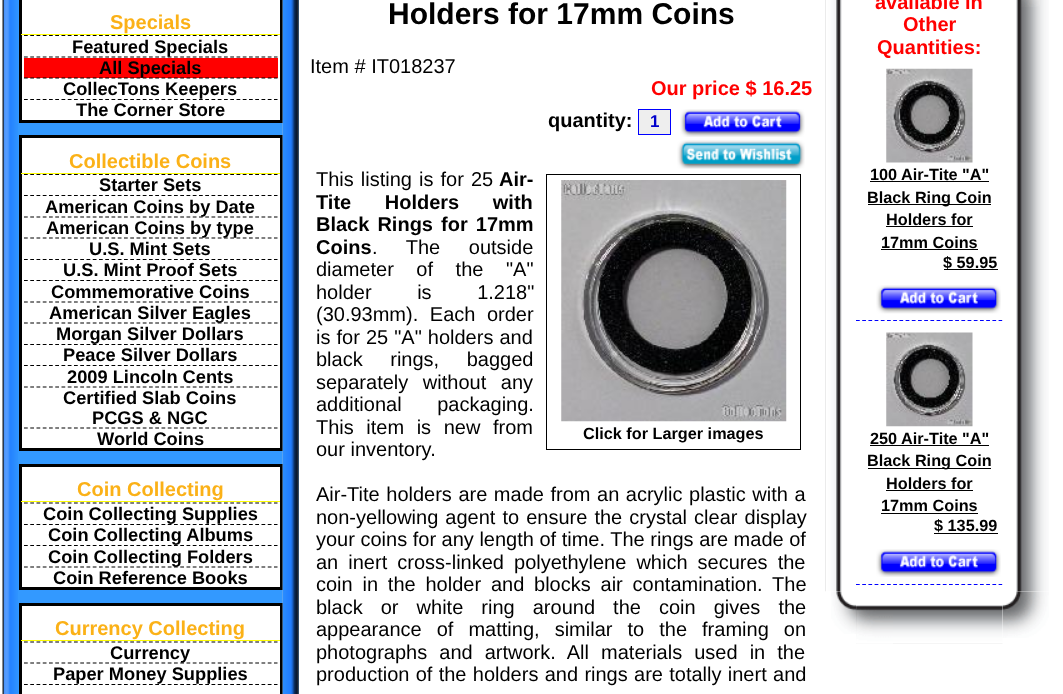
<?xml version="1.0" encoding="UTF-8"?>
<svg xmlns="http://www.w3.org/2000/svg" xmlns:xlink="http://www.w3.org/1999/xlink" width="1063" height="694">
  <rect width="100%" height="100%" fill="#ffffff" />
  <rect x="18" width="281" height="694" fill="#3399ff" />
  <image x="2" y="0" width="16" height="694" xlink:href="image1.png" />
  <rect x="20.5" y="-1.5" width="261" height="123" fill="#ffffff" stroke="#000000" stroke-width="3" />
  <rect x="21" y="34" width="259" height="1" fill="#ffff00" />
  <path d="M 24 35.5 h 253.5" fill="none" stroke="#000000" stroke-width="1.2" stroke-dasharray="3.75 2.5" />
  <path d="M 24 57 h 253.5" fill="none" stroke="#000000" stroke-width="1.2" stroke-dasharray="3.75 2.5" />
  <rect x="24" y="58" width="254" height="20" fill="#ff0000" />
  <path d="M 24 78 h 253.5" fill="none" stroke="#000000" stroke-width="1.2" stroke-dasharray="3.75 2.5" />
  <path d="M 24 99.5 h 253.5" fill="none" stroke="#000000" stroke-width="1.2" stroke-dasharray="3.75 2.5" />
  <rect x="20.5" y="136.5" width="261" height="313" fill="#ffffff" stroke="#000000" stroke-width="3" />
  <rect x="21" y="173" width="259" height="1" fill="#ffff00" />
  <path d="M 24 174.5 h 253.5" fill="none" stroke="#000000" stroke-width="1.2" stroke-dasharray="3.75 2.5" />
  <path d="M 24 195.5 h 253.5" fill="none" stroke="#000000" stroke-width="1.2" stroke-dasharray="3.75 2.5" />
  <path d="M 24 217 h 253.5" fill="none" stroke="#000000" stroke-width="1.2" stroke-dasharray="3.75 2.5" />
  <path d="M 24 238 h 253.5" fill="none" stroke="#000000" stroke-width="1.2" stroke-dasharray="3.75 2.5" />
  <path d="M 24 259.5 h 253.5" fill="none" stroke="#000000" stroke-width="1.2" stroke-dasharray="3.75 2.5" />
  <path d="M 24 280.5 h 253.5" fill="none" stroke="#000000" stroke-width="1.2" stroke-dasharray="3.75 2.5" />
  <path d="M 24 302 h 253.5" fill="none" stroke="#000000" stroke-width="1.2" stroke-dasharray="3.75 2.5" />
  <path d="M 24 323 h 253.5" fill="none" stroke="#000000" stroke-width="1.2" stroke-dasharray="3.75 2.5" />
  <path d="M 24 344.5 h 253.5" fill="none" stroke="#000000" stroke-width="1.2" stroke-dasharray="3.75 2.5" />
  <path d="M 24 365.5 h 253.5" fill="none" stroke="#000000" stroke-width="1.2" stroke-dasharray="3.75 2.5" />
  <path d="M 24 387 h 253.5" fill="none" stroke="#000000" stroke-width="1.2" stroke-dasharray="3.75 2.5" />
  <path d="M 24 428 h 253.5" fill="none" stroke="#000000" stroke-width="1.2" stroke-dasharray="3.75 2.5" />
  <rect x="20.5" y="465.5" width="261" height="123" fill="#ffffff" stroke="#000000" stroke-width="3" />
  <rect x="21" y="501" width="259" height="1" fill="#ffff00" />
  <path d="M 24 503 h 253.5" fill="none" stroke="#000000" stroke-width="1.2" stroke-dasharray="3.75 2.5" />
  <path d="M 24 524.5 h 253.5" fill="none" stroke="#000000" stroke-width="1.2" stroke-dasharray="3.75 2.5" />
  <path d="M 24 545.5 h 253.5" fill="none" stroke="#000000" stroke-width="1.2" stroke-dasharray="3.75 2.5" />
  <path d="M 24 567 h 253.5" fill="none" stroke="#000000" stroke-width="1.2" stroke-dasharray="3.75 2.5" />
  <rect x="20.5" y="604.5" width="261" height="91" fill="#ffffff" stroke="#000000" stroke-width="3" />
  <rect x="21" y="640" width="259" height="1" fill="#ffff00" />
  <path d="M 24 642 h 253.5" fill="none" stroke="#000000" stroke-width="1.2" stroke-dasharray="3.75 2.5" />
  <path d="M 24 663 h 253.5" fill="none" stroke="#000000" stroke-width="1.2" stroke-dasharray="3.75 2.5" />
  <path d="M 24 684.5 h 253.5" fill="none" stroke="#000000" stroke-width="1.2" stroke-dasharray="3.75 2.5" />
  <image x="282" y="0" width="17" height="694" xlink:href="image2.png" />
  <rect x="638.5" y="109.5" width="32" height="25" fill="#eeeeee" stroke="#0000ff" />
  <image x="680" y="109" width="125" height="28" xlink:href="image3.png" />
  <image x="677" y="140" width="128" height="29" xlink:href="image4.png" />
  <rect x="546.5" y="174.5" width="254" height="275" fill="none" stroke="#000000" />
  <image x="561" y="180" width="226" height="242" xlink:href="image5.png" />
  <image x="825" y="0" width="17" height="592" xlink:href="image6.png" />
  <image x="886" y="68" width="87" height="95" xlink:href="image7.png" />
  <rect x="870" y="181" width="119" height="1" fill="#000000" />
  <rect x="868" y="204" width="123" height="1" fill="#000000" />
  <rect x="886" y="226" width="87" height="1" fill="#000000" />
  <rect x="881" y="249" width="97" height="1" fill="#000000" />
  <rect x="944" y="269" width="54" height="1" fill="#000000" />
  <image x="876" y="285" width="125" height="29" xlink:href="image8.png" />
  <path d="M 856 320.5 h 146.5" fill="none" stroke="#0000ff" stroke-width="1.2" stroke-dasharray="3.75 2.45" />
  <image x="886" y="332" width="87" height="95" xlink:href="image9.png" />
  <rect x="870" y="445" width="119" height="1" fill="#000000" />
  <rect x="868" y="468" width="123" height="1" fill="#000000" />
  <rect x="886" y="490" width="87" height="1" fill="#000000" />
  <rect x="881" y="513" width="97" height="1" fill="#000000" />
  <rect x="934" y="533" width="64" height="1" fill="#000000" />
  <image x="876" y="549" width="125" height="28" xlink:href="image10.png" />
  <path d="M 856 584.5 h 146.5" fill="none" stroke="#0000ff" stroke-width="1.2" stroke-dasharray="3.75 2.45" />
  <image x="1002" y="0" width="47" height="592" xlink:href="image11.png" />
  <image x="1021" y="0" width="19" height="7" xlink:href="image12.png" />
  <image x="831" y="591" width="26" height="43" xlink:href="image13.png" />
  <image x="856" y="605" width="147" height="39" xlink:href="image14.png" />
  <image x="856" y="605" width="37" height="39" xlink:href="image15.png" />
  <image x="1002" y="591" width="47" height="47" xlink:href="image16.png" />
  <text x="110" y="29" style="font-family: Liberation Sans; font-size: 20px; font-weight: bold; fill: #fbb117">Specials</text>
  <text x="72" y="53" style="font-family: Liberation Sans; font-size: 18.25px; font-weight: bold; fill: #000000">Featured Specials</text>
  <text x="99" y="74" style="font-family: Liberation Sans; font-size: 18.25px; font-weight: bold; fill: #000000">All Specials</text>
  <text x="63" y="95" style="font-family: Liberation Sans; font-size: 18.25px; font-weight: bold; fill: #000000">CollecTons Keepers</text>
  <text x="76" y="116" style="font-family: Liberation Sans; font-size: 18.25px; font-weight: bold; fill: #000000">The Corner Store</text>
  <text x="69" y="168" style="font-family: Liberation Sans; font-size: 20px; font-weight: bold; fill: #fbb117">Collectible Coins</text>
  <text x="99" y="191" style="font-family: Liberation Sans; font-size: 18.25px; font-weight: bold; fill: #000000">Starter Sets</text>
  <text x="45" y="213" style="font-family: Liberation Sans; font-size: 18.25px; font-weight: bold; fill: #000000">American Coins by Date</text>
  <text x="46" y="234" style="font-family: Liberation Sans; font-size: 18.25px; font-weight: bold; fill: #000000">American Coins by type</text>
  <text x="89" y="255" style="font-family: Liberation Sans; font-size: 18.25px; font-weight: bold; fill: #000000">U.S. Mint Sets</text>
  <text x="63" y="276" style="font-family: Liberation Sans; font-size: 18.25px; font-weight: bold; fill: #000000">U.S. Mint Proof Sets</text>
  <text x="51" y="298" style="font-family: Liberation Sans; font-size: 18.25px; font-weight: bold; fill: #000000">Commemorative Coins</text>
  <text x="49" y="319" style="font-family: Liberation Sans; font-size: 18.25px; font-weight: bold; fill: #000000">American Silver Eagles</text>
  <text x="56" y="340" style="font-family: Liberation Sans; font-size: 18.25px; font-weight: bold; fill: #000000">Morgan Silver Dollars</text>
  <text x="63" y="361" style="font-family: Liberation Sans; font-size: 18.25px; font-weight: bold; fill: #000000">Peace Silver Dollars</text>
  <text x="67" y="383" style="font-family: Liberation Sans; font-size: 18.25px; font-weight: bold; fill: #000000">2009 Lincoln Cents</text>
  <text x="63" y="404" style="font-family: Liberation Sans; font-size: 18.25px; font-weight: bold; fill: #000000">Certified Slab Coins</text>
  <text x="92" y="424" style="font-family: Liberation Sans; font-size: 18.25px; font-weight: bold; fill: #000000">PCGS &amp; NGC</text>
  <text x="97" y="445" style="font-family: Liberation Sans; font-size: 18.25px; font-weight: bold; fill: #000000">World Coins</text>
  <text x="77" y="496" style="font-family: Liberation Sans; font-size: 20px; font-weight: bold; fill: #fbb117">Coin Collecting</text>
  <text x="43" y="520" style="font-family: Liberation Sans; font-size: 18.25px; font-weight: bold; fill: #000000">Coin Collecting Supplies</text>
  <text x="48" y="541" style="font-family: Liberation Sans; font-size: 18.25px; font-weight: bold; fill: #000000">Coin Collecting Albums</text>
  <text x="48" y="563" style="font-family: Liberation Sans; font-size: 18.25px; font-weight: bold; fill: #000000">Coin Collecting Folders</text>
  <text x="53" y="584" style="font-family: Liberation Sans; font-size: 18.25px; font-weight: bold; fill: #000000">Coin Reference Books</text>
  <text x="55" y="635" style="font-family: Liberation Sans; font-size: 20px; font-weight: bold; fill: #fbb117">Currency Collecting</text>
  <text x="110" y="659" style="font-family: Liberation Sans; font-size: 18.25px; font-weight: bold; fill: #000000">Currency</text>
  <text x="53" y="680" style="font-family: Liberation Sans; font-size: 18.25px; font-weight: bold; fill: #000000">Paper Money Supplies</text>
  <text x="388" y="24" style="font-family: Liberation Sans; font-size: 30px; font-weight: bold; fill: #000000">Holders for 17mm Coins</text>
  <text x="310" y="73" style="font-family: Liberation Sans; font-size: 20px; fill: #000000">Item # IT018237</text>
  <text x="651" y="95" style="font-family: Liberation Sans; font-size: 20px; font-weight: bold; fill: #ff0000">Our price $ 16.25</text>
  <text x="548" y="127" style="font-family: Liberation Sans; font-size: 20px; font-weight: bold; fill: #000000">quantity:</text>
  <text x="650" y="127" style="font-family: Liberation Sans; font-size: 17px; font-weight: bold; fill: #0000cc">1</text>
  <text x="316" y="186" word-spacing="1.5" style="font-family: Liberation Sans; font-size: 20px; fill: #000000">This listing is for 25</text>
  <text x="499" y="186" style="font-family: Liberation Sans; font-size: 20px; font-weight: bold; fill: #000000">Air-</text>
  <text x="316" y="209" word-spacing="28" style="font-family: Liberation Sans; font-size: 20px; font-weight: bold; fill: #000000">Tite Holders with</text>
  <text x="316" y="231" word-spacing="2.5" style="font-family: Liberation Sans; font-size: 20px; font-weight: bold; fill: #000000">Black Rings for 17mm</text>
  <text x="316" y="254" style="font-family: Liberation Sans; font-size: 20px; font-weight: bold; fill: #000000">Coins</text>
  <text x="372" y="254" word-spacing="23" style="font-family: Liberation Sans; font-size: 20px; fill: #000000">. The outside</text>
  <text x="316" y="276" word-spacing="17" style="font-family: Liberation Sans; font-size: 20px; fill: #000000">diameter of the "A"</text>
  <text x="316" y="299" word-spacing="40" style="font-family: Liberation Sans; font-size: 20px; fill: #000000">holder is 1.218"</text>
  <text x="316" y="321" word-spacing="6" style="font-family: Liberation Sans; font-size: 20px; fill: #000000">(30.93mm). Each order</text>
  <text x="316" y="344" word-spacing="0.5" style="font-family: Liberation Sans; font-size: 20px; fill: #000000">is for 25 "A" holders and</text>
  <text x="316" y="366" word-spacing="22" style="font-family: Liberation Sans; font-size: 20px; fill: #000000">black rings, bagged</text>
  <text x="316" y="389" word-spacing="9" style="font-family: Liberation Sans; font-size: 20px; fill: #000000">separately without any</text>
  <text x="316" y="411" word-spacing="30" style="font-family: Liberation Sans; font-size: 20px; fill: #000000">additional packaging.</text>
  <text x="316" y="434" word-spacing="7" style="font-family: Liberation Sans; font-size: 20px; fill: #000000">This item is new from</text>
  <text x="583" y="439" style="font-family: Liberation Sans; font-size: 16.25px; font-weight: bold; fill: #000000">Click for Larger images</text>
  <text x="316" y="456" style="font-family: Liberation Sans; font-size: 20px; fill: #000000">our inventory.</text>
  <text x="316" y="501" word-spacing="1" style="font-family: Liberation Sans; font-size: 20px; fill: #000000">Air-Tite holders are made from an acrylic plastic with a</text>
  <text x="316" y="524" word-spacing="1.5" style="font-family: Liberation Sans; font-size: 20px; fill: #000000">non-yellowing agent to ensure the crystal clear display</text>
  <text x="316" y="546" style="font-family: Liberation Sans; font-size: 20px; fill: #000000">your coins for any length of time. The rings are made of</text>
  <text x="316" y="569" word-spacing="4.5" style="font-family: Liberation Sans; font-size: 20px; fill: #000000">an inert cross-linked polyethylene which secures the</text>
  <text x="316" y="591" word-spacing="4.25" style="font-family: Liberation Sans; font-size: 20px; fill: #000000">coin in the holder and blocks air contamination. The</text>
  <text x="316" y="614" word-spacing="12.5" style="font-family: Liberation Sans; font-size: 20px; fill: #000000">black or white ring around the coin gives the</text>
  <text x="316" y="636" word-spacing="9.5" style="font-family: Liberation Sans; font-size: 20px; fill: #000000">appearance of matting, similar to the framing on</text>
  <text x="316" y="659" word-spacing="6.5" style="font-family: Liberation Sans; font-size: 20px; fill: #000000">photographs and artwork. All materials used in the</text>
  <text x="316" y="681" word-spacing="0.75" style="font-family: Liberation Sans; font-size: 20px; fill: #000000">production of the holders and rings are totally inert and</text>
  <text x="875" y="9" style="font-family: Liberation Sans; font-size: 20px; font-weight: bold; fill: #ff0000">available in</text>
  <text x="903" y="31" style="font-family: Liberation Sans; font-size: 20px; font-weight: bold; fill: #ff0000">Other</text>
  <text x="877" y="54" style="font-family: Liberation Sans; font-size: 20px; font-weight: bold; fill: #ff0000">Quantities:</text>
  <text x="870" y="180" style="font-family: Liberation Sans; font-size: 16.25px; font-weight: bold; fill: #000000">100 Air-Tite "A"</text>
  <text x="867" y="203" style="font-family: Liberation Sans; font-size: 16.25px; font-weight: bold; fill: #000000">Black Ring Coin</text>
  <text x="886" y="225" style="font-family: Liberation Sans; font-size: 16.25px; font-weight: bold; fill: #000000">Holders for</text>
  <text x="881" y="248" style="font-family: Liberation Sans; font-size: 16.25px; font-weight: bold; fill: #000000">17mm Coins</text>
  <text x="943" y="268" style="font-family: Liberation Sans; font-size: 16.25px; font-weight: bold; fill: #000000">$ 59.95</text>
  <text x="870" y="444" style="font-family: Liberation Sans; font-size: 16.25px; font-weight: bold; fill: #000000">250 Air-Tite "A"</text>
  <text x="867" y="466" style="font-family: Liberation Sans; font-size: 16.25px; font-weight: bold; fill: #000000">Black Ring Coin</text>
  <text x="886" y="489" style="font-family: Liberation Sans; font-size: 16.25px; font-weight: bold; fill: #000000">Holders for</text>
  <text x="881" y="511" style="font-family: Liberation Sans; font-size: 16.25px; font-weight: bold; fill: #000000">17mm Coins</text>
  <text x="934" y="531" style="font-family: Liberation Sans; font-size: 16.25px; font-weight: bold; fill: #000000">$ 135.99</text>
</svg>
